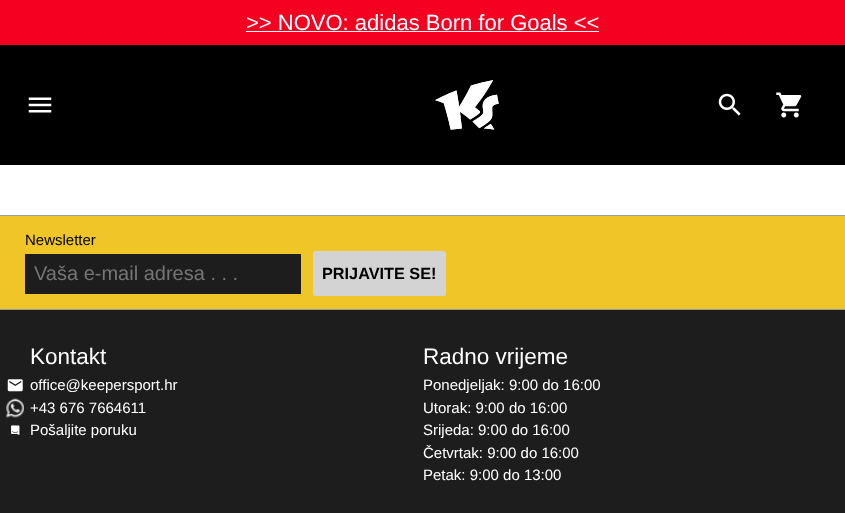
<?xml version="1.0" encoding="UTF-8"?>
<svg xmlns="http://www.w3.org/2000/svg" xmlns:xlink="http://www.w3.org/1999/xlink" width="845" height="513">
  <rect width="100%" height="100%" fill="#f60022" />
  <rect x="246" y="31" width="353" height="1" fill="#ffffff" />
  <rect y="45" width="845" height="120" fill="#000000" />
  <image x="28" y="97" width="24" height="16" xlink:href="image1.png" />
  <image x="435" y="80" width="64" height="50" xlink:href="image2.png" />
  <image x="718" y="93" width="23" height="23" xlink:href="image3.png" />
  <image x="776" y="92" width="26" height="26" xlink:href="image4.png" />
  <rect y="165" width="845" height="50" fill="#ffffff" />
  <rect y="310" width="845" height="203" fill="#1d1d1d" />
  <rect y="216" width="845" height="93" fill="#efc527" />
  <rect y="215" width="845" height="1" fill="#979ea0" />
  <rect x="25" y="254" width="276" height="40" fill="#1d1d1d" />
  <rect x="313" y="251" width="133" height="45" rx="2.5" fill="#d3d3d3" />
  <rect y="309" width="845" height="1" fill="#979ea0" />
  <image x="7" y="379" width="16" height="13" xlink:href="image5.png" />
  <image x="6" y="398" width="18" height="20" xlink:href="image6.png" />
  <image x="11" y="425" width="9" height="10" xlink:href="image7.png" />
  <text x="246" y="30" style="font-family: Liberation Sans; font-size: 22px; fill: #ffffff">&gt;&gt; NOVO: adidas Born for Goals &lt;&lt;</text>
  <text x="25" y="245" style="font-family: Liberation Sans; font-size: 15px; fill: #000000">Newsletter</text>
  <text x="34" y="280" style="font-family: Liberation Sans; font-size: 20px; fill: #757575">Vaša e-mail adresa . . .</text>
  <text x="322" y="279" style="font-family: Liberation Sans; font-size: 16.25px; font-weight: bold; fill: #000000">PRIJAVITE SE!</text>
  <text x="30" y="364" style="font-family: Liberation Sans; font-size: 22.5px; fill: #ffffff">Kontakt</text>
  <text x="30" y="390" style="font-family: Liberation Sans; font-size: 15px; fill: #ffffff">office@keepersport.hr</text>
  <text x="30" y="413" style="font-family: Liberation Sans; font-size: 15px; fill: #ffffff">+43 676 7664611</text>
  <text x="30" y="435" style="font-family: Liberation Sans; font-size: 15px; fill: #ffffff">Pošaljite poruku</text>
  <text x="423" y="364" style="font-family: Liberation Sans; font-size: 22.5px; fill: #ffffff">Radno vrijeme</text>
  <text x="423" y="390" style="font-family: Liberation Sans; font-size: 15px; fill: #ffffff">Ponedjeljak: 9:00 do 16:00</text>
  <text x="423" y="413" style="font-family: Liberation Sans; font-size: 15px; fill: #ffffff">Utorak: 9:00 do 16:00</text>
  <text x="423" y="435" style="font-family: Liberation Sans; font-size: 15px; fill: #ffffff">Srijeda: 9:00 do 16:00</text>
  <text x="423" y="458" style="font-family: Liberation Sans; font-size: 15px; fill: #ffffff">Četvrtak: 9:00 do 16:00</text>
  <text x="423" y="480" style="font-family: Liberation Sans; font-size: 15px; fill: #ffffff">Petak: 9:00 do 13:00</text>
</svg>
